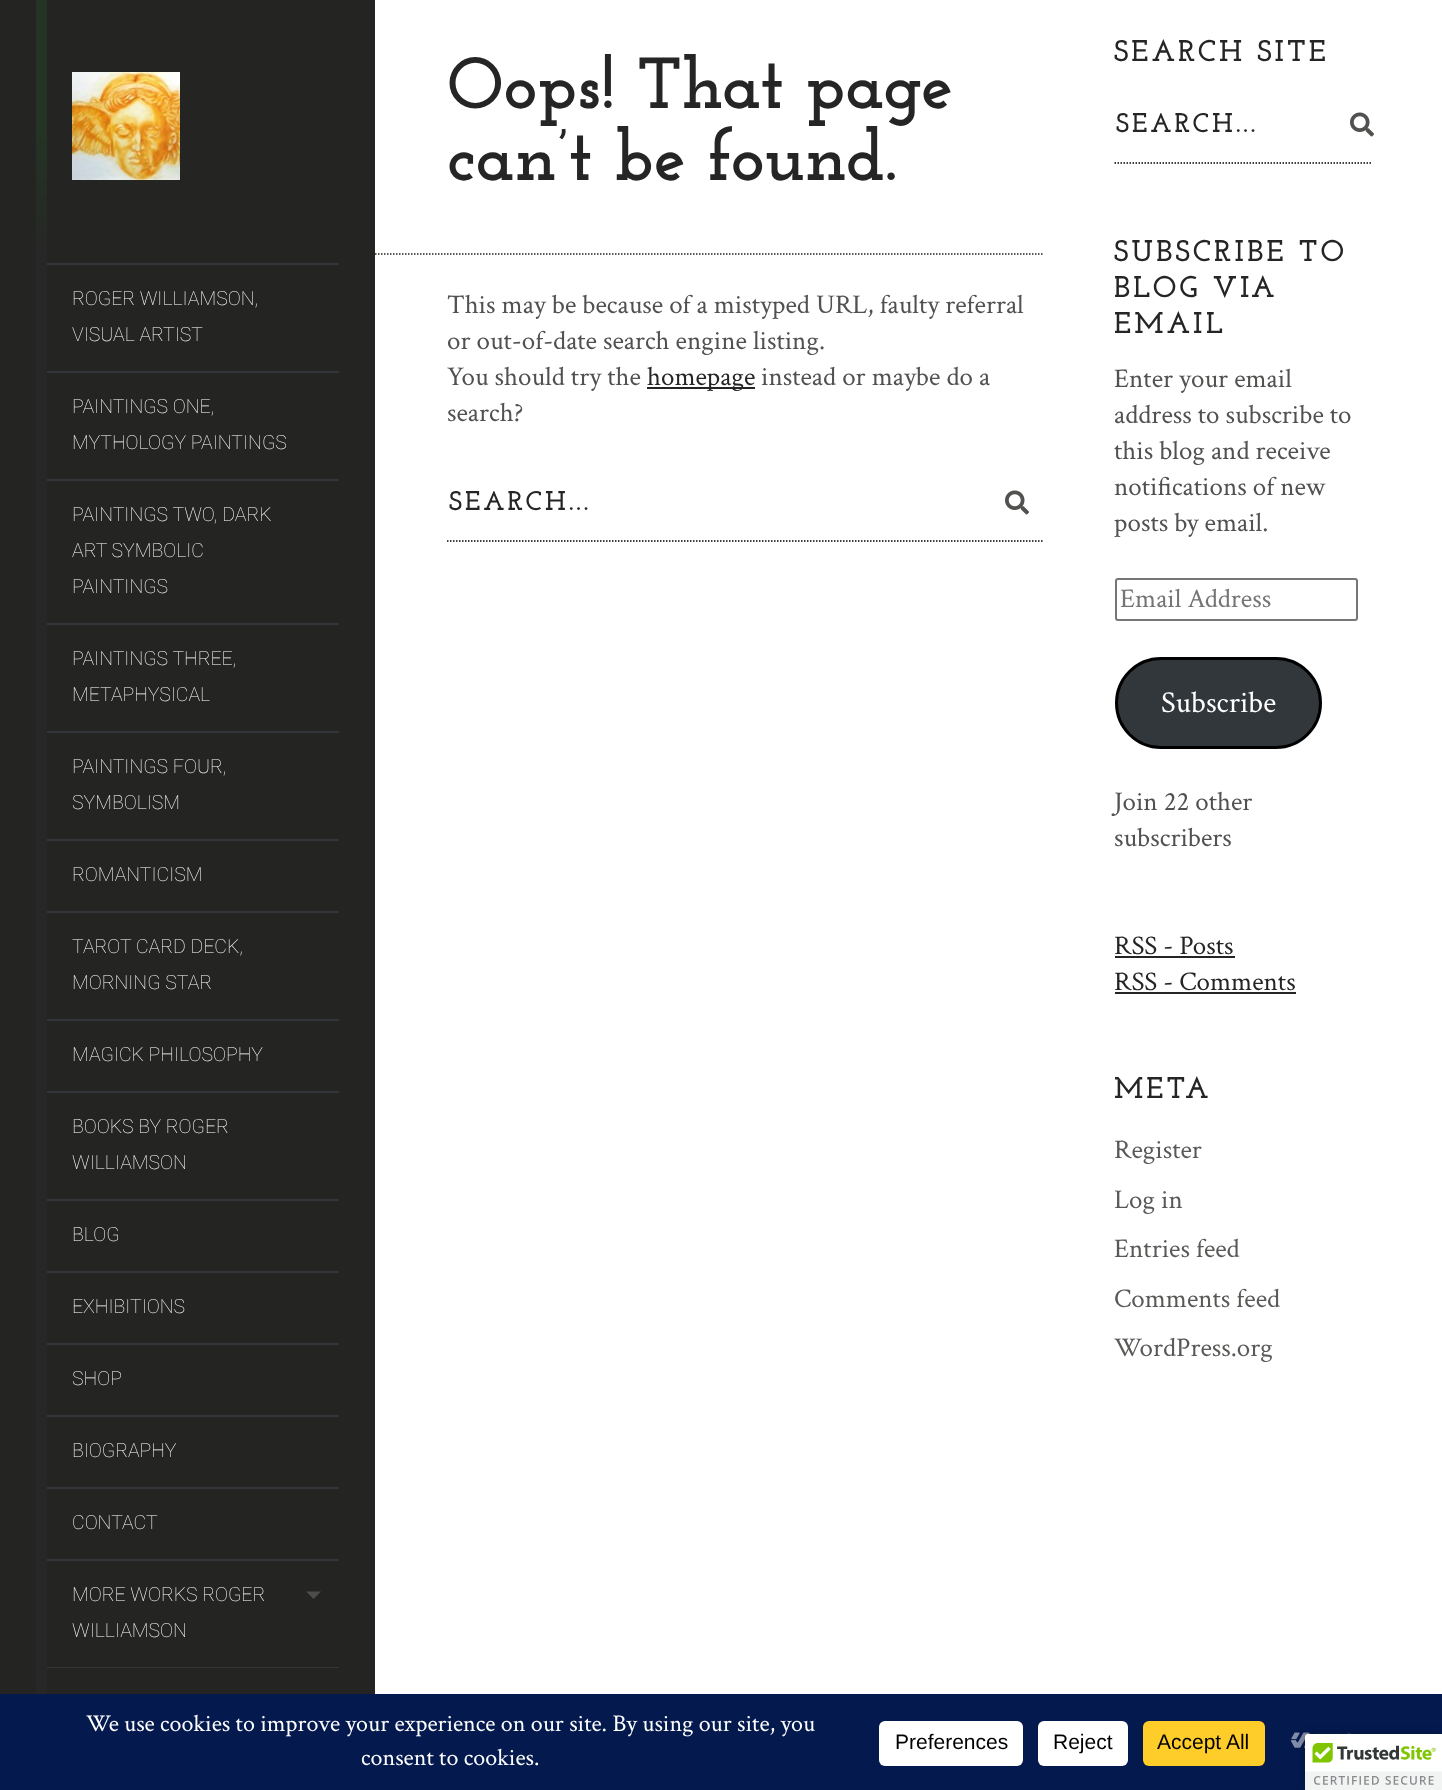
<?xml version="1.0" encoding="UTF-8"?>
<svg xmlns="http://www.w3.org/2000/svg" xmlns:xlink="http://www.w3.org/1999/xlink" width="1442" height="1790">
  <defs>
    <linearGradient id="g1" gradientUnits="userSpaceOnUse" x1="37" y1="0" x2="37" y2="252"><stop offset="0.5" stop-color="#26ef3a" /><stop offset="1" stop-color="#464a4d" /></linearGradient>
    <clipPath id="clip1"><rect x="449" y="491" width="544" height="27" /></clipPath>
    <clipPath id="clip2"><rect x="1116" y="113" width="234" height="27" /></clipPath>
  </defs>
  <rect width="100%" height="100%" fill="#ffffff" />
  <rect width="375" height="1694" fill="#242423" />
  <rect x="36" y="252" width="11" height="1442" fill="#464a4d" />
  <rect x="36" width="11" height="252" fill="url(#g1)" />
  <rect x="36" width="11" height="1694" fill="#242423" fill-opacity="0.92" />
  <image x="72" y="72" width="108" height="108" xlink:href="image1.png" />
  <rect x="47" y="263" width="292" height="2" fill="#333638" />
  <rect x="47" y="371" width="292" height="2" fill="#333638" />
  <rect x="47" y="479" width="292" height="2" fill="#333638" />
  <rect x="47" y="623" width="292" height="2" fill="#333638" />
  <rect x="47" y="731" width="292" height="2" fill="#333638" />
  <rect x="47" y="839" width="292" height="2" fill="#333638" />
  <rect x="47" y="911" width="292" height="2" fill="#333638" />
  <rect x="47" y="1019" width="292" height="2" fill="#333638" />
  <rect x="47" y="1091" width="292" height="2" fill="#333638" />
  <rect x="47" y="1199" width="292" height="2" fill="#333638" />
  <rect x="47" y="1271" width="292" height="2" fill="#333638" />
  <rect x="47" y="1343" width="292" height="2" fill="#333638" />
  <rect x="47" y="1415" width="292" height="2" fill="#333638" />
  <rect x="47" y="1487" width="292" height="2" fill="#333638" />
  <rect x="47" y="1559" width="292" height="2" fill="#333638" />
  <rect x="47" y="1667" width="292" height="1" fill="#333638" />
  <path d="M 306 1591.5 h 15 l -7.5 7.5 z" fill="#4d4d4d" />
  <path d="M 375 254 h 667.5" fill="none" stroke="#242423" stroke-width="1.5" stroke-dasharray="1.5 1.5" />
  <rect x="647" y="387" width="108" height="2" fill="#242423" />
  <path d="M 447 541 h 595.5" fill="none" stroke="#000000" stroke-width="1.5" stroke-dasharray="1.5 1.5" />
  <image x="1005" y="490" width="24" height="25" xlink:href="image2.png" />
  <path d="M 1114.5 163 h 256.5" fill="none" stroke="#000000" stroke-width="1.5" stroke-dasharray="1.5 1.5" />
  <image x="1350" y="112" width="24" height="25" xlink:href="image2.png" />
  <rect x="1116" y="579" width="241" height="41" rx="2" fill="none" stroke="#767676" stroke-width="2" />
  <rect x="1116.5" y="658.5" width="204" height="89" rx="44.5" fill="#32373c" stroke="#000000" stroke-width="3" />
  <rect x="1115" y="956" width="120" height="2" fill="#242423" />
  <rect x="1115" y="992" width="181" height="2" fill="#242423" />
  <rect y="1694" width="1442" height="96" fill="#04194e" />
  <rect x="879" y="1721" width="144" height="45" rx="6" fill="#ffffff" />
  <rect x="1038" y="1721" width="90" height="45" rx="6" fill="#ffffff" />
  <rect x="1143" y="1721" width="122" height="45" rx="6" fill="#ffcd2a" />
  <image x="1291" y="1732" width="60" height="16" xlink:href="image3.png" />
  <rect x="1305" y="1734" width="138" height="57" rx="3" fill="#000000" fill-opacity="0.2" filter="blur(4px)" />
  <path d="M 1308 1734 h 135 v 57 h -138 v -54 c 0 -1.5 1.5 -3 3 -3 z" fill="#ffffff" />
  <image x="1305" y="1734" width="137" height="56" xlink:href="image4.png" />
  <text x="72" y="305" style="font-family: Roboto; font-size: 19.5px; font-weight: 100; fill: #ffffff">ROGER WILLIAMSON,</text>
  <text x="72" y="341" style="font-family: Roboto; font-size: 19.5px; font-weight: 100; fill: #ffffff">VISUAL ARTIST</text>
  <text x="72" y="413" style="font-family: Roboto; font-size: 19.5px; font-weight: 100; fill: #ffffff">PAINTINGS ONE,</text>
  <text x="72" y="449" style="font-family: Roboto; font-size: 19.5px; font-weight: 100; fill: #ffffff">MYTHOLOGY PAINTINGS</text>
  <text x="72" y="521" style="font-family: Roboto; font-size: 19.5px; font-weight: 100; fill: #ffffff">PAINTINGS TWO, DARK</text>
  <text x="72" y="557" style="font-family: Roboto; font-size: 19.5px; font-weight: 100; fill: #ffffff">ART SYMBOLIC</text>
  <text x="72" y="593" style="font-family: Roboto; font-size: 19.5px; font-weight: 100; fill: #ffffff">PAINTINGS</text>
  <text x="72" y="665" style="font-family: Roboto; font-size: 19.5px; font-weight: 100; fill: #ffffff">PAINTINGS THREE,</text>
  <text x="72" y="701" style="font-family: Roboto; font-size: 19.5px; font-weight: 100; fill: #ffffff">METAPHYSICAL</text>
  <text x="72" y="773" style="font-family: Roboto; font-size: 19.5px; font-weight: 100; fill: #ffffff">PAINTINGS FOUR,</text>
  <text x="72" y="809" style="font-family: Roboto; font-size: 19.5px; font-weight: 100; fill: #ffffff">SYMBOLISM</text>
  <text x="72" y="881" style="font-family: Roboto; font-size: 19.5px; font-weight: 100; fill: #ffffff">ROMANTICISM</text>
  <text x="72" y="953" style="font-family: Roboto; font-size: 19.5px; font-weight: 100; fill: #ffffff">TAROT CARD DECK,</text>
  <text x="72" y="989" style="font-family: Roboto; font-size: 19.5px; font-weight: 100; fill: #ffffff">MORNING STAR</text>
  <text x="72" y="1061" style="font-family: Roboto; font-size: 19.5px; font-weight: 100; fill: #ffffff">MAGICK PHILOSOPHY</text>
  <text x="72" y="1133" style="font-family: Roboto; font-size: 19.5px; font-weight: 100; fill: #ffffff">BOOKS BY ROGER</text>
  <text x="72" y="1169" style="font-family: Roboto; font-size: 19.5px; font-weight: 100; fill: #ffffff">WILLIAMSON</text>
  <text x="72" y="1241" style="font-family: Roboto; font-size: 19.5px; font-weight: 100; fill: #ffffff">BLOG</text>
  <text x="72" y="1313" style="font-family: Roboto; font-size: 19.5px; font-weight: 100; fill: #ffffff">EXHIBITIONS</text>
  <text x="72" y="1385" style="font-family: Roboto; font-size: 19.5px; font-weight: 100; fill: #ffffff">SHOP</text>
  <text x="72" y="1457" style="font-family: Roboto; font-size: 19.5px; font-weight: 100; fill: #ffffff">BIOGRAPHY</text>
  <text x="72" y="1529" style="font-family: Roboto; font-size: 19.5px; font-weight: 100; fill: #ffffff">CONTACT</text>
  <text x="72" y="1601" style="font-family: Roboto; font-size: 19.5px; font-weight: 100; fill: #ffffff">MORE WORKS ROGER</text>
  <text x="72" y="1637" style="font-family: Roboto; font-size: 19.5px; font-weight: 100; fill: #ffffff">WILLIAMSON</text>
  <text x="447" y="108" style="font-family: Josefin Slab; font-size: 72px; font-weight: bold; fill: #262526">Oops! That page</text>
  <text x="447" y="180" style="font-family: Josefin Slab; font-size: 72px; font-weight: bold; fill: #262526">can’t be found.</text>
  <text x="447" y="313" style="font-family: Crimson Text; font-size: 27px; fill: #515150">This may be because of a mistyped URL, faulty referral</text>
  <text x="447" y="349" style="font-family: Crimson Text; font-size: 27px; fill: #515150">or out-of-date search engine listing.</text>
  <text x="447" y="385" style="font-family: Crimson Text; font-size: 27px; fill: #515150">You should try the</text>
  <text x="647" y="385" style="font-family: Crimson Text; font-size: 27px; fill: #262526">homepage</text>
  <text x="761" y="385" style="font-family: Crimson Text; font-size: 27px; fill: #515150">instead or maybe do a</text>
  <text x="447" y="421" style="font-family: Crimson Text; font-size: 27px; fill: #515150">search?</text>
  <g clip-path="url(#clip1)">
    <text x="449" y="510" style="font-family: Josefin Slab; font-size: 27px; font-weight: bold; letter-spacing: 3px; fill: #262526">SEARCH...</text>
  </g>
  <text x="1114" y="61" style="font-family: Josefin Slab; font-size: 30px; font-weight: bold; letter-spacing: 3px; fill: #262526">SEARCH SITE</text>
  <g clip-path="url(#clip2)">
    <text x="1116" y="132" style="font-family: Josefin Slab; font-size: 27px; font-weight: bold; letter-spacing: 3px; fill: #262526">SEARCH...</text>
  </g>
  <text x="1114" y="261" style="font-family: Josefin Slab; font-size: 30px; font-weight: bold; letter-spacing: 3px; fill: #262526">SUBSCRIBE TO</text>
  <text x="1114" y="297" style="font-family: Josefin Slab; font-size: 30px; font-weight: bold; letter-spacing: 3px; fill: #262526">BLOG VIA</text>
  <text x="1114" y="333" style="font-family: Josefin Slab; font-size: 30px; font-weight: bold; letter-spacing: 3px; fill: #262526">EMAIL</text>
  <text x="1114" y="387" style="font-family: Crimson Text; font-size: 27px; fill: #515150">Enter your email</text>
  <text x="1114" y="423" style="font-family: Crimson Text; font-size: 27px; fill: #515150">address to subscribe to</text>
  <text x="1114" y="459" style="font-family: Crimson Text; font-size: 27px; fill: #515150">this blog and receive</text>
  <text x="1114" y="495" style="font-family: Crimson Text; font-size: 27px; fill: #515150">notifications of new</text>
  <text x="1114" y="531" style="font-family: Crimson Text; font-size: 27px; fill: #515150">posts by email.</text>
  <text x="1120" y="607" style="font-family: Crimson Text; font-size: 27px; fill: #757575">Email Address</text>
  <text x="1161" y="712" style="font-family: Crimson Text; font-size: 30.5px; fill: #ffffff">Subscribe</text>
  <text x="1114" y="810" style="font-family: Crimson Text; font-size: 27px; fill: #515150">Join 22 other</text>
  <text x="1114" y="846" style="font-family: Crimson Text; font-size: 27px; fill: #515150">subscribers</text>
  <text x="1114" y="954" style="font-family: Crimson Text; font-size: 27px; fill: #262526">RSS - Posts</text>
  <text x="1114" y="990" style="font-family: Crimson Text; font-size: 27px; fill: #262526">RSS - Comments</text>
  <text x="1114" y="1098" style="font-family: Josefin Slab; font-size: 30px; font-weight: bold; letter-spacing: 3px; fill: #262526">META</text>
  <text x="1114" y="1158" style="font-family: Crimson Text; font-size: 27px; fill: #595957">Register</text>
  <text x="1114" y="1208" style="font-family: Crimson Text; font-size: 27px; fill: #595957">Log in</text>
  <text x="1114" y="1257" style="font-family: Crimson Text; font-size: 27px; fill: #595957">Entries feed</text>
  <text x="1114" y="1307" style="font-family: Crimson Text; font-size: 27px; fill: #595957">Comments feed</text>
  <text x="1114" y="1356" style="font-family: Crimson Text; font-size: 27px; fill: #595957">WordPress.org</text>
  <text x="86" y="1731" style="font-family: Crimson Text; font-size: 24px; fill: #ffffff">We use cookies to improve your experience on our site. By using our site, you</text>
  <text x="361" y="1765" style="font-family: Crimson Text; font-size: 24px; fill: #ffffff">consent to cookies.</text>
  <text x="895" y="1749" style="font-family: Liberation Sans; font-size: 21px; fill: #000000">Preferences</text>
  <text x="1053" y="1749" style="font-family: Liberation Sans; font-size: 21px; fill: #000000">Reject</text>
  <text x="1157" y="1749" style="font-family: Liberation Sans; font-size: 21px; fill: #000000">Accept All</text>
</svg>
